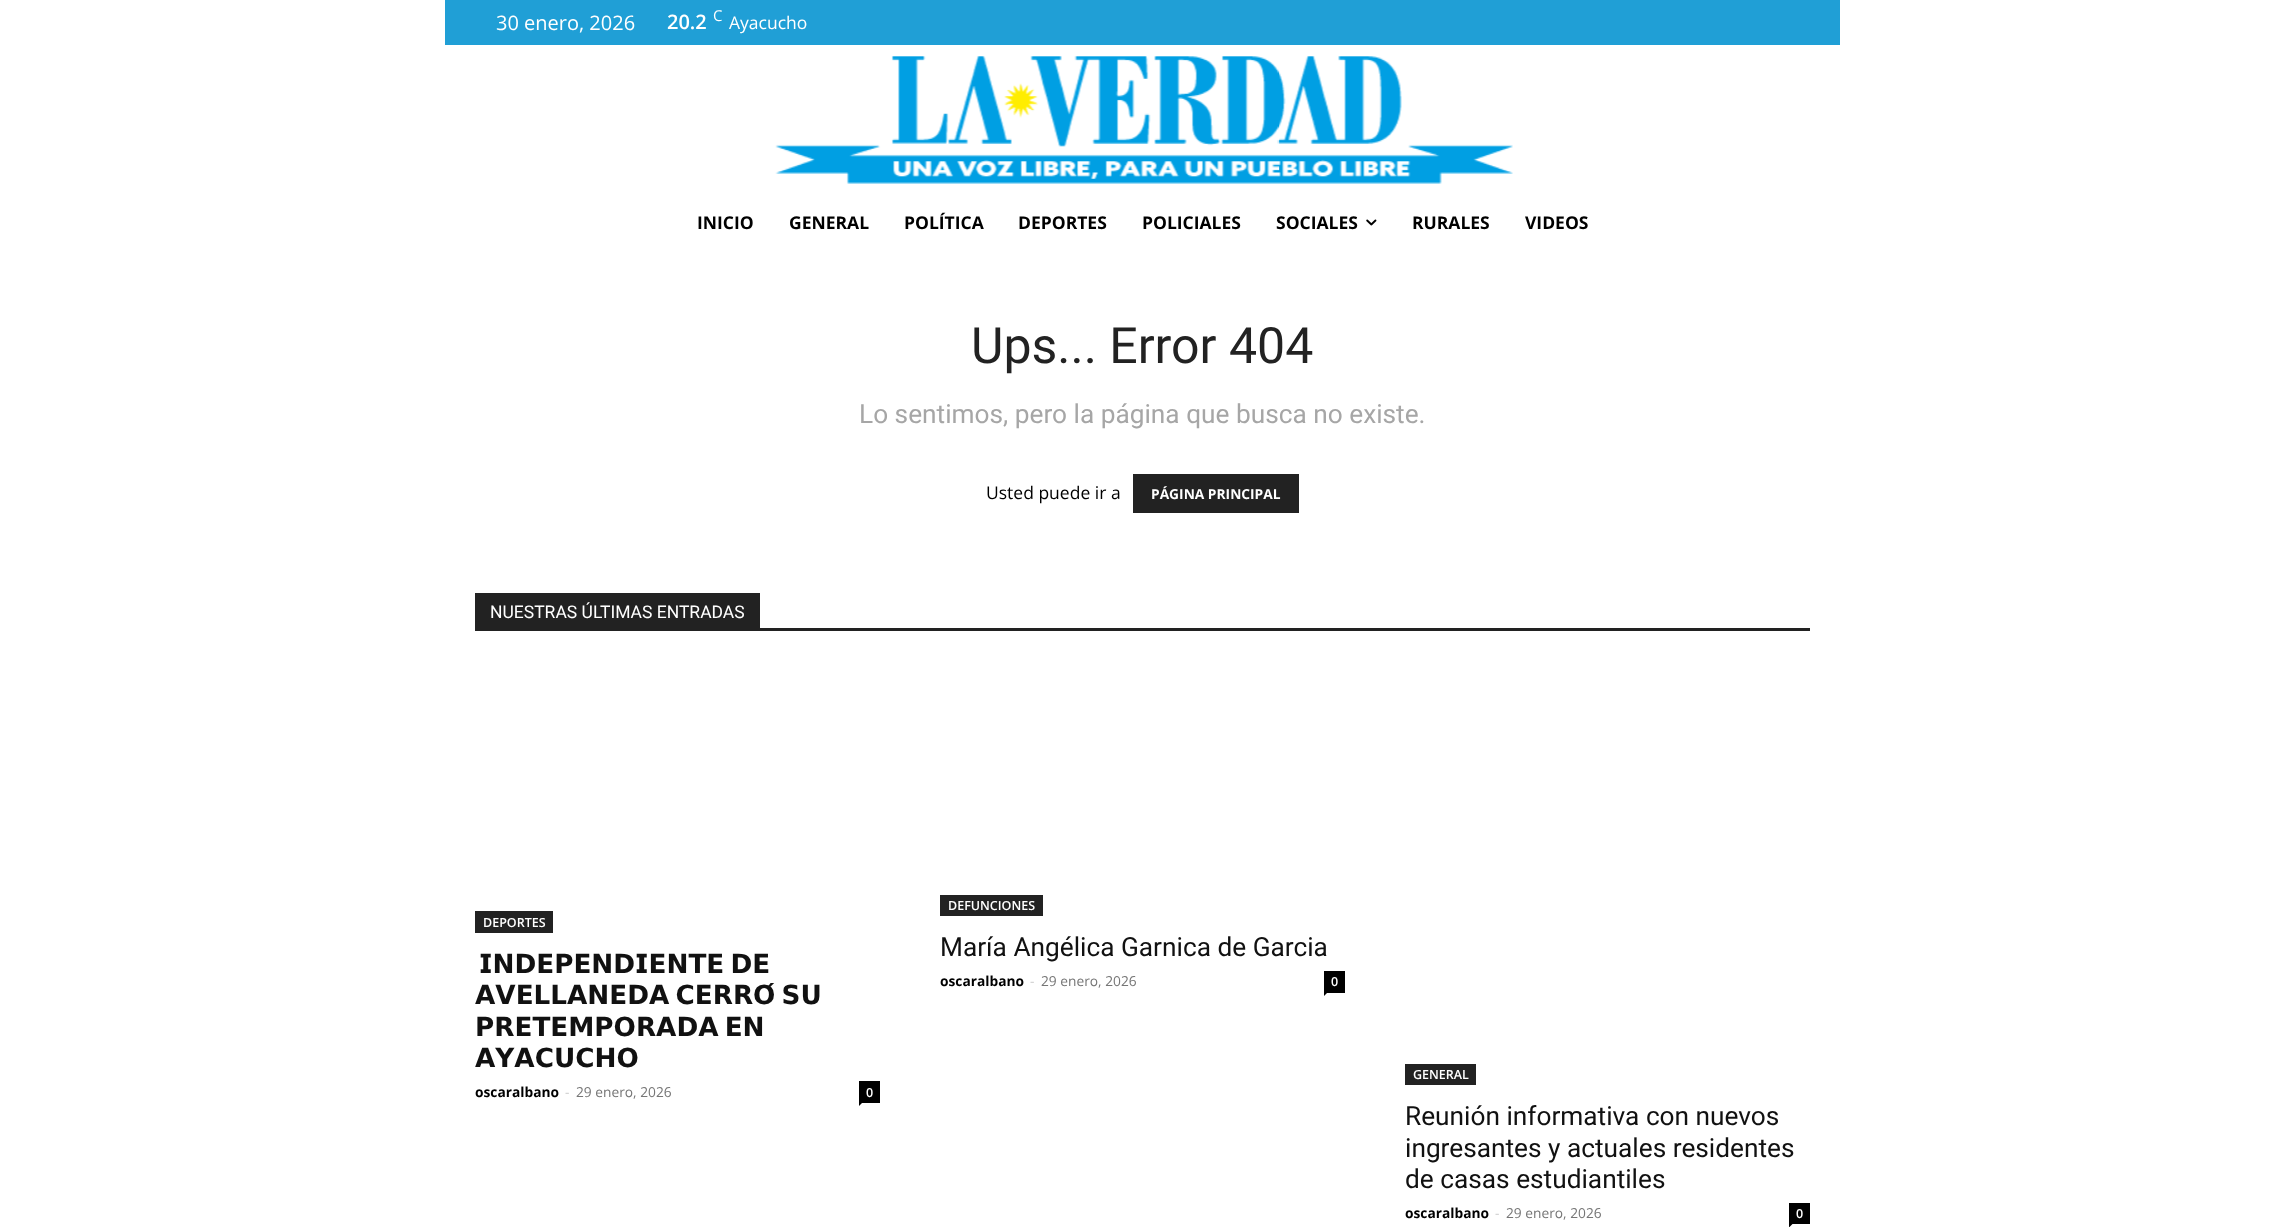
<?xml version="1.0" encoding="UTF-8"?>
<svg xmlns="http://www.w3.org/2000/svg" xmlns:xlink="http://www.w3.org/1999/xlink" width="2285" height="1227">
  <rect width="100%" height="100%" fill="#ffffff" />
  <rect x="445" width="1395" height="45" fill="#209fd6" />
  <image x="775" y="56" width="738" height="128" xlink:href="image1.png" />
  <image x="1366" y="219" width="11" height="7" xlink:href="image2.png" />
  <rect x="1133" y="474" width="166" height="39" fill="#222222" />
  <rect x="475" y="628" width="1335" height="3" fill="#222222" />
  <rect x="475" y="593" width="285" height="35" fill="#222222" />
  <rect x="475" y="911" width="78" height="22" fill="#222222" />
  <rect x="859" y="1081" width="21" height="22" fill="#000000" />
  <path d="M 859 1102.5 h 3.5 l -3.5 3.5 z" fill="#000000" />
  <rect x="940" y="895" width="103" height="21" fill="#222222" />
  <rect x="1324" y="971" width="21" height="22" fill="#000000" />
  <path d="M 1324 992.5 h 3.5 l -3.5 3.5 z" fill="#000000" />
  <rect x="1405" y="1064" width="71" height="21" fill="#222222" />
  <rect x="1789" y="1203" width="21" height="21" fill="#000000" />
  <path d="M 1789 1224 h 3.5 l -3.5 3.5 z" fill="#000000" />
  <text x="496" y="30" style="font-family: Open Sans; font-size: 20px; fill: #ffffff">30 enero, 2026</text>
  <text x="667" y="29" style="font-family: Open Sans; font-size: 20px; font-weight: 600; fill: #ffffff">20.2</text>
  <text x="713" y="21" style="font-family: Open Sans; font-size: 15px; fill: #ffffff">C</text>
  <text x="729" y="29" style="font-family: Open Sans; font-size: 17.5px; fill: #ffffff">Ayacucho</text>
  <text x="697" y="229" style="font-family: Open Sans; font-size: 17.5px; font-weight: bold; fill: #000000">INICIO</text>
  <text x="789" y="229" style="font-family: Open Sans; font-size: 17.5px; font-weight: bold; fill: #000000">GENERAL</text>
  <text x="904" y="229" style="font-family: Open Sans; font-size: 17.5px; font-weight: bold; fill: #000000">POLÍTICA</text>
  <text x="1018" y="229" style="font-family: Open Sans; font-size: 17.5px; font-weight: bold; fill: #000000">DEPORTES</text>
  <text x="1142" y="229" style="font-family: Open Sans; font-size: 17.5px; font-weight: bold; fill: #000000">POLICIALES</text>
  <text x="1276" y="229" style="font-family: Open Sans; font-size: 17.5px; font-weight: bold; fill: #000000">SOCIALES</text>
  <text x="1412" y="229" style="font-family: Open Sans; font-size: 17.5px; font-weight: bold; fill: #000000">RURALES</text>
  <text x="1525" y="229" style="font-family: Open Sans; font-size: 17.5px; font-weight: bold; fill: #000000">VIDEOS</text>
  <text x="971" y="363" style="font-family: Roboto; font-size: 50px; fill: #222222">Ups... Error 404</text>
  <text x="859" y="423" style="font-family: Roboto; font-size: 26.25px; fill: #a6a6a6">Lo sentimos, pero la página que busca no existe.</text>
  <text x="986" y="499" style="font-family: Open Sans; font-size: 17.5px; fill: #000000">Usted puede ir a</text>
  <text x="1151" y="499" style="font-family: Open Sans; font-size: 13.75px; font-weight: bold; fill: #ffffff">PÁGINA PRINCIPAL</text>
  <text x="490" y="618" style="font-family: Roboto; font-size: 17.5px; fill: #ffffff">NUESTRAS ÚLTIMAS ENTRADAS</text>
  <text x="483" y="927" style="font-family: Open Sans; font-size: 12.5px; font-weight: 600; fill: #ffffff">DEPORTES</text>
  <text x="479" y="973" word-spacing="-3" style="font-family: DejaVu Sans; font-size: 26.25px; font-weight: bold; fill: #111111">𝗜𝗡𝗗𝗘𝗣𝗘𝗡𝗗𝗜𝗘𝗡𝗧𝗘 𝗗𝗘</text>
  <text x="475" y="1004" word-spacing="-3" style="font-family: DejaVu Sans; font-size: 26.25px; font-weight: bold; fill: #111111">𝗔𝗩𝗘𝗟𝗟𝗔𝗡𝗘𝗗𝗔 𝗖𝗘𝗥𝗥𝗢́ 𝗦𝗨</text>
  <text x="475" y="1036" word-spacing="-3" style="font-family: DejaVu Sans; font-size: 26.25px; font-weight: bold; fill: #111111">𝗣𝗥𝗘𝗧𝗘𝗠𝗣𝗢𝗥𝗔𝗗𝗔 𝗘𝗡</text>
  <text x="475" y="1067" style="font-family: DejaVu Sans; font-size: 26.25px; font-weight: bold; fill: #111111">𝗔𝗬𝗔𝗖𝗨𝗖𝗛𝗢</text>
  <text x="475" y="1097" style="font-family: Open Sans; font-size: 13.75px; font-weight: bold; fill: #000000">oscaralbano</text>
  <text x="565" y="1097" style="font-family: Open Sans; font-size: 13.75px; fill: #cccccc">-</text>
  <text x="576" y="1097" style="font-family: Open Sans; font-size: 13.75px; fill: #767676">29 enero, 2026</text>
  <text x="866" y="1097" style="font-family: Open Sans; font-size: 12.5px; font-weight: 600; fill: #ffffff">0</text>
  <text x="948" y="910" style="font-family: Open Sans; font-size: 12.5px; font-weight: 600; fill: #ffffff">DEFUNCIONES</text>
  <text x="940" y="956" style="font-family: Roboto; font-size: 26.25px; fill: #111111">María Angélica Garnica de Garcia</text>
  <text x="940" y="986" style="font-family: Open Sans; font-size: 13.75px; font-weight: bold; fill: #000000">oscaralbano</text>
  <text x="1030" y="986" style="font-family: Open Sans; font-size: 13.75px; fill: #cccccc">-</text>
  <text x="1041" y="986" style="font-family: Open Sans; font-size: 13.75px; fill: #767676">29 enero, 2026</text>
  <text x="1331" y="986" style="font-family: Open Sans; font-size: 12.5px; font-weight: 600; fill: #ffffff">0</text>
  <text x="1413" y="1079" style="font-family: Open Sans; font-size: 12.5px; font-weight: 600; fill: #ffffff">GENERAL</text>
  <text x="1405" y="1125" style="font-family: Roboto; font-size: 26.25px; fill: #111111">Reunión informativa con nuevos</text>
  <text x="1405" y="1157" style="font-family: Roboto; font-size: 26.25px; fill: #111111">ingresantes y actuales residentes</text>
  <text x="1405" y="1188" style="font-family: Roboto; font-size: 26.25px; fill: #111111">de casas estudiantiles</text>
  <text x="1405" y="1218" style="font-family: Open Sans; font-size: 13.75px; font-weight: bold; fill: #000000">oscaralbano</text>
  <text x="1495" y="1218" style="font-family: Open Sans; font-size: 13.75px; fill: #cccccc">-</text>
  <text x="1506" y="1218" style="font-family: Open Sans; font-size: 13.75px; fill: #767676">29 enero, 2026</text>
  <text x="1796" y="1218" style="font-family: Open Sans; font-size: 12.5px; font-weight: 600; fill: #ffffff">0</text>
</svg>
